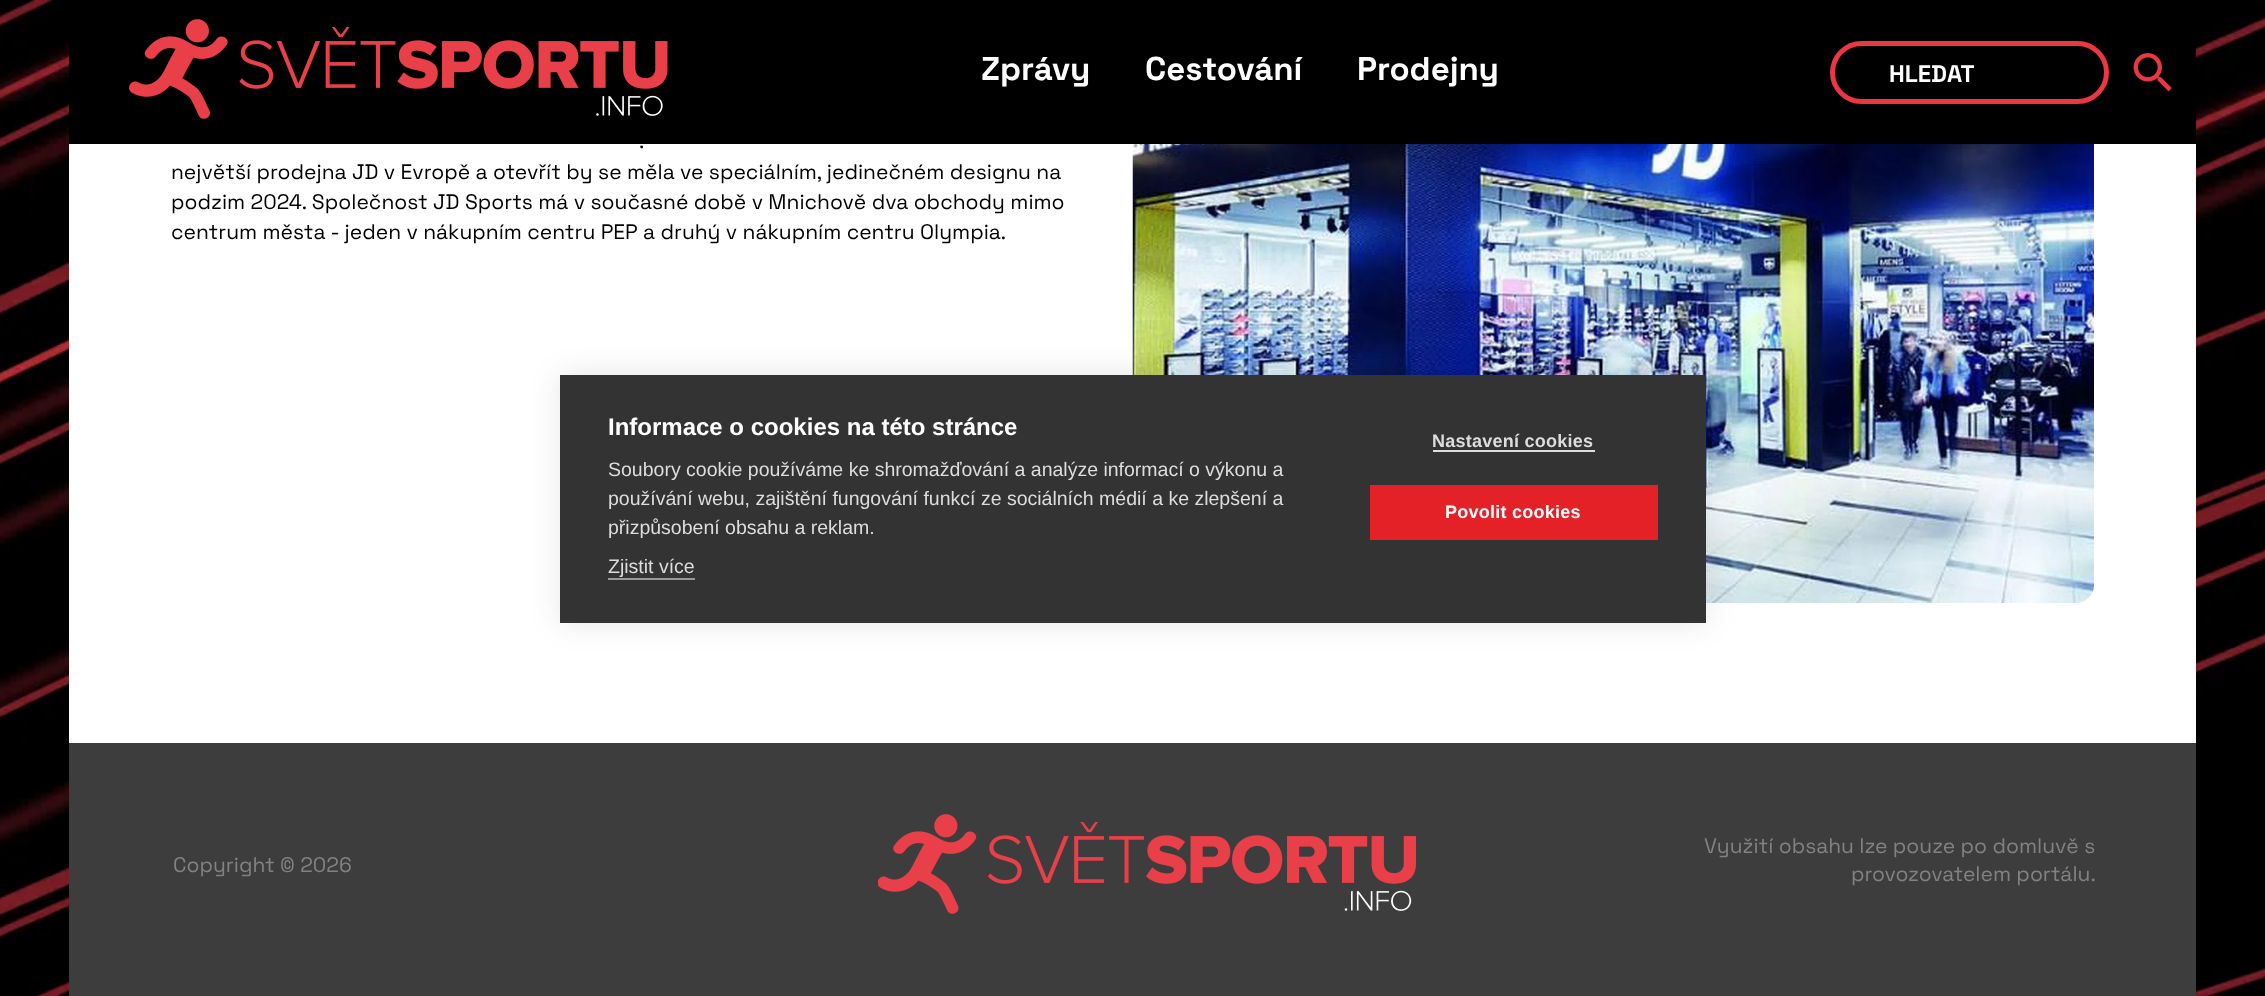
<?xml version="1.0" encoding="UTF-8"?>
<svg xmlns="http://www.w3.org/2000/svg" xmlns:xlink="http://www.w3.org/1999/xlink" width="2265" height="996">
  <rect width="100%" height="100%" fill="#ffffff" />
  <image x="0" y="0" width="2265" height="996" xlink:href="image1.png" />
  <rect x="69" width="2127" height="144" fill="#000000" />
  <image x="129" y="19" width="539" height="100" xlink:href="image2.png" />
  <rect x="1832.5" y="43.5" width="274" height="58" rx="29" fill="none" stroke="#ec3642" stroke-width="5" />
  <image x="2133" y="53" width="39" height="39" xlink:href="image3.png" />
  <rect x="69" y="144" width="2127" height="599" fill="#ffffff" />
  <image x="1132" y="144" width="962" height="459" xlink:href="image4.png" />
  <rect x="560" y="375" width="1146" height="248" fill="#000000" fill-opacity="0.1" filter="blur(15px)" />
  <rect x="560" y="375" width="1146" height="248" fill="#333333" />
  <rect x="608" y="578" width="87" height="2" fill="#999999" />
  <rect x="1433" y="450" width="162" height="2" fill="#dddddd" />
  <rect x="1370" y="485" width="288" height="55" fill="#e42127" />
  <rect x="69" y="743" width="2127" height="253" fill="#3d3d3d" />
  <image x="878" y="814" width="538" height="100" xlink:href="image5.png" />
  <text x="981" y="80" style="font-family: Space Grotesk; font-size: 33px; font-weight: bold; fill: #ffffff">Zprávy</text>
  <text x="1145" y="80" style="font-family: Space Grotesk; font-size: 33px; font-weight: bold; fill: #ffffff">Cestování</text>
  <text x="1357" y="80" style="font-family: Space Grotesk; font-size: 33px; font-weight: bold; fill: #ffffff">Prodejny</text>
  <text x="1889" y="82" style="font-family: Space Grotesk; font-size: 24px; font-weight: bold; fill: #ffffff">HLEDAT</text>
  <text x="639" y="148" style="font-family: Space Grotesk; font-size: 21px; fill: #000000">.</text>
  <text x="171" y="179" style="font-family: Space Grotesk; font-size: 21px; fill: #000000">největší prodejna JD v Evropě a otevřít by se měla ve speciálním, jedinečném designu na</text>
  <text x="171" y="209" style="font-family: Space Grotesk; font-size: 21px; fill: #000000">podzim 2024. Společnost JD Sports má v současné době v Mnichově dva obchody mimo</text>
  <text x="171" y="239" style="font-family: Space Grotesk; font-size: 21px; fill: #000000">centrum města - jeden v nákupním centru PEP a druhý v nákupním centru Olympia.</text>
  <text x="608" y="435" style="font-family: Liberation Sans; font-size: 24px; font-weight: bold; fill: #ffffff">Informace o cookies na této stránce</text>
  <text x="608" y="476" style="font-family: Liberation Sans; font-size: 19.5px; fill: #dddddd">Soubory cookie používáme ke shromažďování a analýze informací o výkonu a</text>
  <text x="608" y="505" style="font-family: Liberation Sans; font-size: 19.5px; fill: #dddddd">používání webu, zajištění fungování funkcí ze sociálních médií a ke zlepšení a</text>
  <text x="608" y="534" style="font-family: Liberation Sans; font-size: 19.5px; fill: #dddddd">přizpůsobení obsahu a reklam.</text>
  <text x="608" y="573" style="font-family: Liberation Sans; font-size: 19.5px; fill: #dddddd">Zjistit více</text>
  <text x="1432" y="447" style="font-family: Liberation Sans; font-size: 18px; font-weight: bold; letter-spacing: 0.25px; fill: #dddddd">Nastavení cookies</text>
  <text x="1445" y="518" style="font-family: Liberation Sans; font-size: 18px; font-weight: bold; letter-spacing: 0.25px; fill: #ffffff">Povolit cookies</text>
  <text x="173" y="872" style="font-family: Space Grotesk; font-size: 21px; fill: #828282">Copyright © 2026</text>
  <text x="1704" y="853" style="font-family: Space Grotesk; font-size: 21px; fill: #828282">Využití obsahu lze pouze po domluvě s</text>
  <text x="1851" y="881" style="font-family: Space Grotesk; font-size: 21px; fill: #828282">provozovatelem portálu.</text>
</svg>
